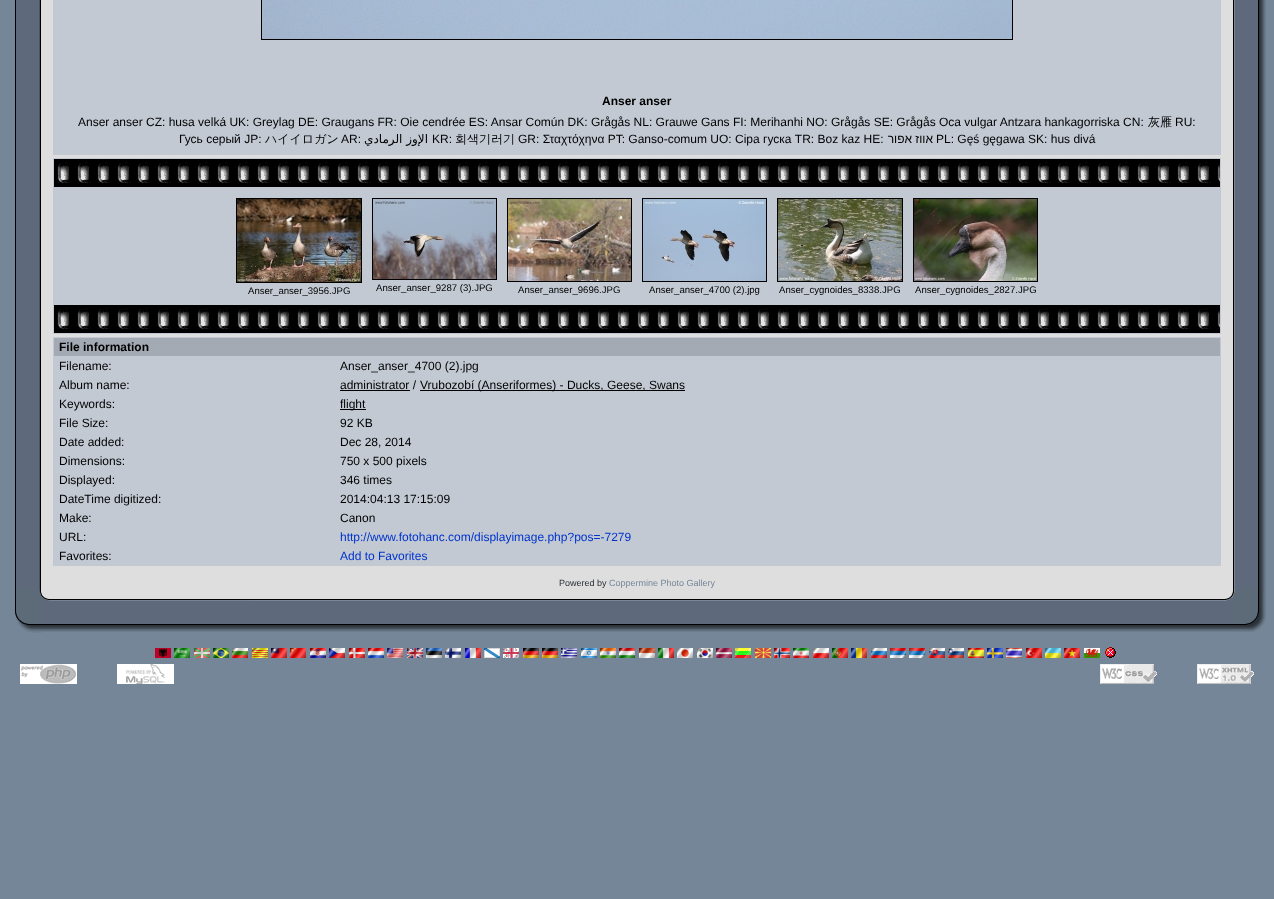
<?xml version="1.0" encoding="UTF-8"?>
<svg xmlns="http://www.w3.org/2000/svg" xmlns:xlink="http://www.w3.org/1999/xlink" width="1274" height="899">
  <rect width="100%" height="100%" fill="#758698" />
  <image x="15" y="0" width="27" height="588" xlink:href="image1.png" />
  <rect x="42" width="1190" height="588" fill="#dedede" />
  <rect x="53" width="1168" height="155" fill="#c2c9d3" />
  <rect x="261.5" y="-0.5" width="751" height="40" fill="none" stroke="#000000" />
  <image x="262" y="0" width="750" height="39" xlink:href="image2.png" />
  <rect x="53" y="158" width="1168" height="176" fill="#c2c9d3" />
  <image x="54" y="159" width="1166" height="28" xlink:href="image3.png" />
  <rect x="236.5" y="198.5" width="125" height="84" fill="none" stroke="#000000" />
  <image x="237" y="199" width="124" height="83" xlink:href="image4.png" />
  <rect x="372.5" y="198.5" width="124" height="81" fill="none" stroke="#000000" />
  <image x="373" y="199" width="123" height="80" xlink:href="image5.png" />
  <rect x="507.5" y="198.5" width="124" height="83" fill="none" stroke="#000000" />
  <image x="508" y="199" width="123" height="82" xlink:href="image6.png" />
  <rect x="642.5" y="198.5" width="124" height="83" fill="none" stroke="#000000" />
  <image x="643" y="199" width="123" height="82" xlink:href="image7.png" />
  <rect x="777.5" y="198.5" width="125" height="83" fill="none" stroke="#000000" />
  <image x="778" y="199" width="124" height="82" xlink:href="image8.png" />
  <rect x="913.5" y="198.5" width="124" height="83" fill="none" stroke="#000000" />
  <image x="914" y="199" width="123" height="82" xlink:href="image9.png" />
  <image x="54" y="305" width="1166" height="28" xlink:href="image3.png" />
  <rect x="53" y="337" width="1168" height="229" fill="#c2c9d3" />
  <rect x="54" y="338" width="1166" height="18" fill="#a3aab4" />
  <rect x="340" y="390" width="70" height="1" fill="#000000" />
  <rect x="420" y="390" width="265" height="1" fill="#000000" />
  <rect x="340" y="409" width="26" height="1" fill="#000000" />
  <image x="1232" y="0" width="34" height="588" xlink:href="image10.png" />
  <rect x="1234" y="102" width="1" height="1" fill="#7c8594" />
  <image x="15" y="588" width="27" height="45" xlink:href="image11.png" />
  <image x="42" y="588" width="208" height="44" xlink:href="image12.png" />
  <image x="250" y="588" width="774" height="44" xlink:href="image13.png" />
  <image x="1024" y="588" width="208" height="44" xlink:href="image14.png" />
  <image x="1232" y="588" width="34" height="44" xlink:href="image15.png" />
  <image x="155" y="648" width="16" height="10" xlink:href="image16.png" />
  <image x="174" y="648" width="16" height="10" xlink:href="image17.png" />
  <image x="194" y="648" width="16" height="10" xlink:href="image18.png" />
  <image x="213" y="648" width="16" height="10" xlink:href="image19.png" />
  <image x="232" y="648" width="16" height="10" xlink:href="image20.png" />
  <image x="252" y="648" width="16" height="10" xlink:href="image21.png" />
  <image x="271" y="648" width="16" height="10" xlink:href="image22.png" />
  <image x="290" y="648" width="16" height="10" xlink:href="image23.png" />
  <image x="310" y="648" width="16" height="10" xlink:href="image24.png" />
  <image x="329" y="648" width="16" height="10" xlink:href="image25.png" />
  <image x="349" y="648" width="16" height="10" xlink:href="image26.png" />
  <image x="368" y="648" width="16" height="10" xlink:href="image27.png" />
  <image x="387" y="648" width="16" height="10" xlink:href="image28.png" />
  <image x="407" y="648" width="16" height="10" xlink:href="image29.png" />
  <image x="426" y="648" width="16" height="10" xlink:href="image30.png" />
  <image x="445" y="648" width="16" height="10" xlink:href="image31.png" />
  <image x="465" y="648" width="16" height="10" xlink:href="image32.png" />
  <image x="484" y="648" width="16" height="10" xlink:href="image33.png" />
  <image x="503" y="648" width="16" height="10" xlink:href="image34.png" />
  <image x="523" y="648" width="16" height="10" xlink:href="image35.png" />
  <image x="542" y="648" width="16" height="10" xlink:href="image35.png" />
  <image x="561" y="648" width="16" height="10" xlink:href="image36.png" />
  <image x="581" y="648" width="16" height="10" xlink:href="image37.png" />
  <image x="600" y="648" width="16" height="10" xlink:href="image38.png" />
  <image x="619" y="648" width="16" height="10" xlink:href="image39.png" />
  <image x="639" y="648" width="16" height="10" xlink:href="image40.png" />
  <image x="658" y="648" width="16" height="10" xlink:href="image41.png" />
  <image x="677" y="648" width="16" height="10" xlink:href="image42.png" />
  <image x="697" y="648" width="16" height="10" xlink:href="image43.png" />
  <image x="716" y="648" width="16" height="10" xlink:href="image44.png" />
  <image x="735" y="648" width="16" height="10" xlink:href="image45.png" />
  <image x="755" y="648" width="16" height="10" xlink:href="image46.png" />
  <image x="774" y="648" width="16" height="10" xlink:href="image47.png" />
  <image x="793" y="648" width="16" height="10" xlink:href="image48.png" />
  <image x="813" y="648" width="16" height="10" xlink:href="image49.png" />
  <image x="832" y="648" width="16" height="10" xlink:href="image50.png" />
  <image x="851" y="648" width="16" height="10" xlink:href="image51.png" />
  <image x="871" y="648" width="16" height="10" xlink:href="image52.png" />
  <image x="890" y="648" width="16" height="10" xlink:href="image53.png" />
  <image x="909" y="648" width="16" height="10" xlink:href="image53.png" />
  <image x="929" y="648" width="16" height="10" xlink:href="image54.png" />
  <image x="948" y="648" width="16" height="10" xlink:href="image55.png" />
  <image x="968" y="648" width="16" height="10" xlink:href="image56.png" />
  <image x="987" y="648" width="16" height="10" xlink:href="image57.png" />
  <image x="1006" y="648" width="16" height="10" xlink:href="image58.png" />
  <image x="1026" y="648" width="16" height="10" xlink:href="image59.png" />
  <image x="1045" y="648" width="16" height="10" xlink:href="image60.png" />
  <image x="1064" y="648" width="16" height="10" xlink:href="image61.png" />
  <image x="1084" y="648" width="16" height="10" xlink:href="image62.png" />
  <image x="1105" y="647" width="11" height="11" xlink:href="image63.png" />
  <image x="20" y="664" width="57" height="20" xlink:href="image64.png" />
  <image x="117" y="664" width="57" height="20" xlink:href="image65.png" />
  <image x="1100" y="664" width="57" height="20" xlink:href="image66.png" />
  <image x="1197" y="664" width="57" height="20" xlink:href="image67.png" />
  <text x="602" y="105" style="font-family: Liberation Sans; font-size: 12px; font-weight: bold; fill: #000000">Anser anser</text>
  <text x="78" y="126" style="font-family: Liberation Sans; font-size: 12px; fill: #000000">Anser anser CZ: husa velká UK: Greylag DE: Graugans FR: Oie cendrée ES: Ansar Común DK: Grågås NL: Grauwe Gans FI: Merihanhi NO: Grågås SE: Grågås Oca vulgar Antzara hankagorriska CN:</text>
  <text x="1148" y="126" style="font-family: WenQuanYi Zen Hei; font-size: 12px; font-weight: 500; fill: #000000">灰雁</text>
  <text x="1175" y="126" style="font-family: Liberation Sans; font-size: 12px; fill: #000000">RU:</text>
  <text x="179" y="143" style="font-family: Liberation Sans; font-size: 12px; fill: #000000">Гусь серый JP:</text>
  <text x="265" y="143" style="font-family: WenQuanYi Zen Hei; font-size: 12px; font-weight: 500; fill: #000000">ハイイロガン</text>
  <text x="341" y="143" style="font-family: Liberation Sans; font-size: 12px; fill: #000000">AR:</text>
  <text x="428" y="143" style="font-family: DejaVu Sans; font-size: 12px; direction: rtl; fill: #000000">الإوز الرمادي</text>
  <text x="432" y="143" style="font-family: Liberation Sans; font-size: 12px; fill: #000000">KR:</text>
  <text x="455" y="143" style="font-family: WenQuanYi Zen Hei; font-size: 12px; font-weight: 500; fill: #000000">회색기러기</text>
  <text x="518" y="143" style="font-family: Liberation Sans; font-size: 12px; fill: #000000">GR: Σταχτόχηνα PT: Ganso-comum UO: Сіра гуска TR: Boz kaz HE:</text>
  <text x="933" y="143" style="font-family: Liberation Sans; font-size: 12px; direction: rtl; fill: #000000">אווז אפור</text>
  <text x="936" y="143" style="font-family: Liberation Sans; font-size: 12px; fill: #000000">PL: Gęś gęgawa SK: hus divá</text>
  <text x="248" y="294" style="font-family: Liberation Sans; font-size: 9.6px; fill: #000000">Anser_anser_3956.JPG</text>
  <text x="376" y="291" style="font-family: Liberation Sans; font-size: 9.6px; fill: #000000">Anser_anser_9287 (3).JPG</text>
  <text x="518" y="293" style="font-family: Liberation Sans; font-size: 9.6px; fill: #000000">Anser_anser_9696.JPG</text>
  <text x="649" y="293" style="font-family: Liberation Sans; font-size: 9.6px; fill: #000000">Anser_anser_4700 (2).jpg</text>
  <text x="779" y="293" style="font-family: Liberation Sans; font-size: 9.6px; fill: #000000">Anser_cygnoides_8338.JPG</text>
  <text x="915" y="293" style="font-family: Liberation Sans; font-size: 9.6px; fill: #000000">Anser_cygnoides_2827.JPG</text>
  <text x="59" y="351" style="font-family: Liberation Sans; font-size: 12px; font-weight: bold; fill: #000000">File information</text>
  <text x="59" y="370" style="font-family: Liberation Sans; font-size: 12px; fill: #000000">Filename:</text>
  <text x="340" y="370" style="font-family: Liberation Sans; font-size: 12px; fill: #000000">Anser_anser_4700 (2).jpg</text>
  <text x="59" y="389" style="font-family: Liberation Sans; font-size: 12px; fill: #000000">Album name:</text>
  <text x="340" y="389" style="font-family: Liberation Sans; font-size: 12px; fill: #000000">administrator /</text>
  <text x="420" y="389" style="font-family: Liberation Sans; font-size: 12px; fill: #000000">Vrubozobí (Anseriformes) - Ducks, Geese, Swans</text>
  <text x="59" y="408" style="font-family: Liberation Sans; font-size: 12px; fill: #000000">Keywords:</text>
  <text x="340" y="408" style="font-family: Liberation Sans; font-size: 12px; fill: #000000">flight</text>
  <text x="59" y="427" style="font-family: Liberation Sans; font-size: 12px; fill: #000000">File Size:</text>
  <text x="340" y="427" style="font-family: Liberation Sans; font-size: 12px; fill: #000000">92 KB</text>
  <text x="59" y="446" style="font-family: Liberation Sans; font-size: 12px; fill: #000000">Date added:</text>
  <text x="340" y="446" style="font-family: Liberation Sans; font-size: 12px; fill: #000000">Dec 28, 2014</text>
  <text x="59" y="465" style="font-family: Liberation Sans; font-size: 12px; fill: #000000">Dimensions:</text>
  <text x="340" y="465" style="font-family: Liberation Sans; font-size: 12px; fill: #000000">750 x 500 pixels</text>
  <text x="59" y="484" style="font-family: Liberation Sans; font-size: 12px; fill: #000000">Displayed:</text>
  <text x="340" y="484" style="font-family: Liberation Sans; font-size: 12px; fill: #000000">346 times</text>
  <text x="59" y="503" style="font-family: Liberation Sans; font-size: 12px; fill: #000000">DateTime digitized:</text>
  <text x="340" y="503" style="font-family: Liberation Sans; font-size: 12px; fill: #000000">2014:04:13 17:15:09</text>
  <text x="59" y="522" style="font-family: Liberation Sans; font-size: 12px; fill: #000000">Make:</text>
  <text x="340" y="522" style="font-family: Liberation Sans; font-size: 12px; fill: #000000">Canon</text>
  <text x="59" y="541" style="font-family: Liberation Sans; font-size: 12px; fill: #000000">URL:</text>
  <text x="340" y="541" style="font-family: Liberation Sans; font-size: 12px; fill: #0033cc">http://www.fotohanc.com/displayimage.php?pos=-7279</text>
  <text x="59" y="560" style="font-family: Liberation Sans; font-size: 12px; fill: #000000">Favorites:</text>
  <text x="340" y="560" style="font-family: Liberation Sans; font-size: 12px; fill: #0033cc">Add to Favorites</text>
  <text x="559" y="586" style="font-family: Liberation Sans; font-size: 9px; fill: #292e34">Powered by</text>
  <text x="609" y="586" style="font-family: Liberation Sans; font-size: 9px; fill: #758698">Coppermine Photo Gallery</text>
</svg>
